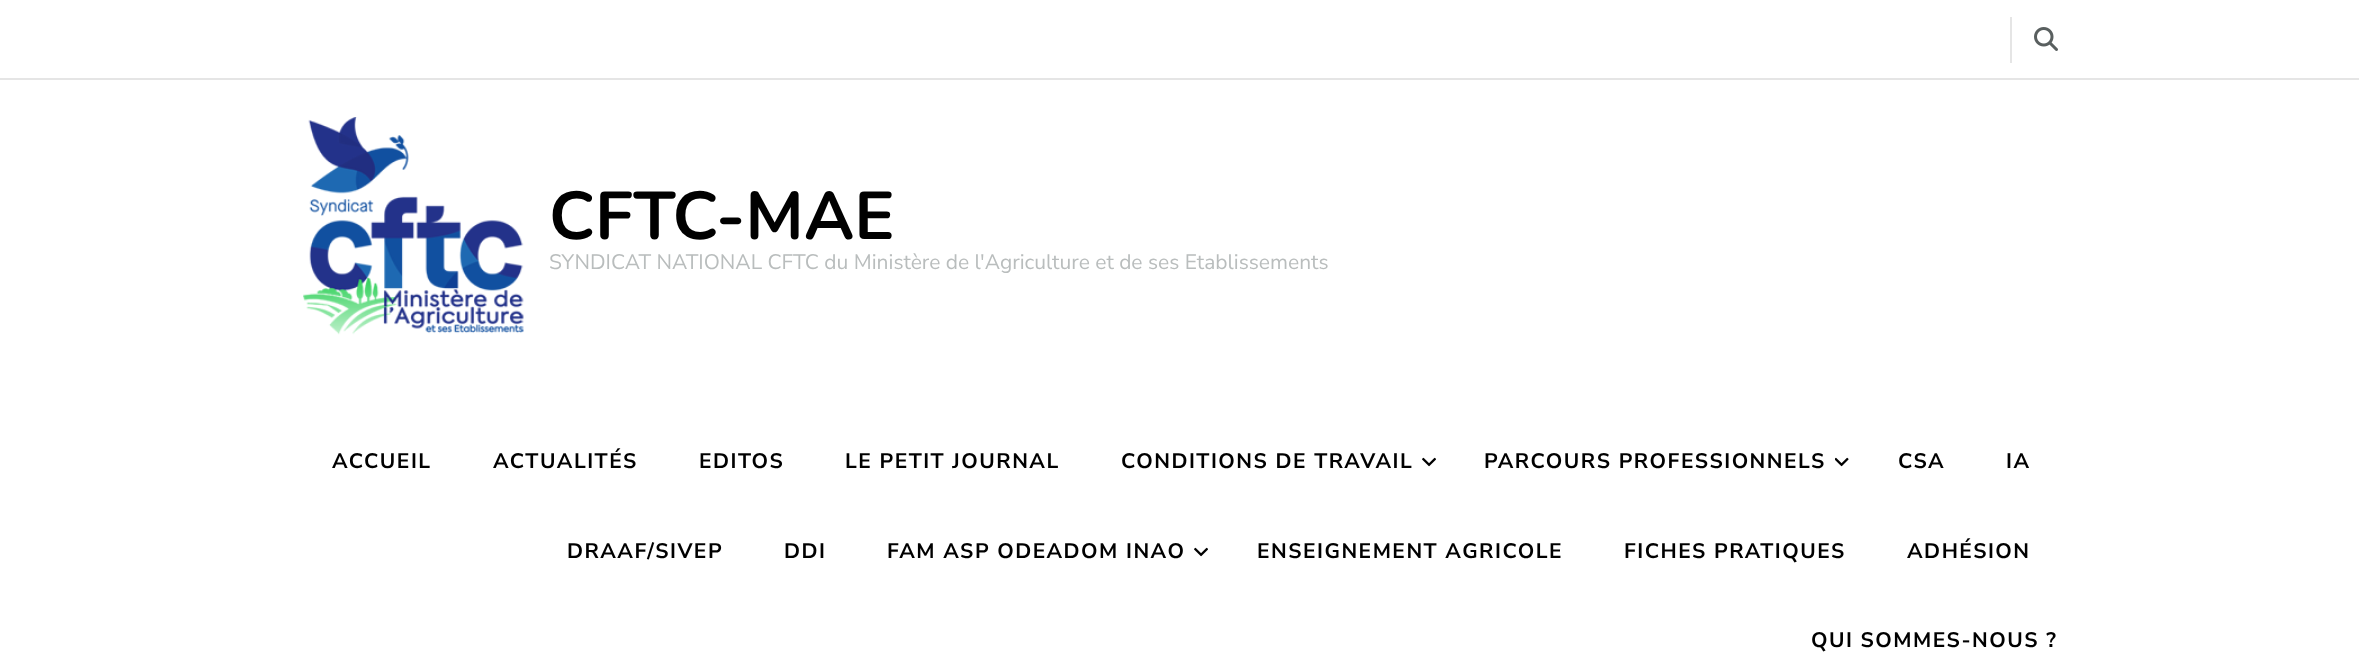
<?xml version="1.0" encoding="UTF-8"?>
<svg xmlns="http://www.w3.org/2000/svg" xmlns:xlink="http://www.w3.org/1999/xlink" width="2359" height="672">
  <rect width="100%" height="100%" fill="#ffffff" />
  <rect y="78" width="2359" height="2" fill="#e5e5e5" />
  <rect x="2010" y="17" width="2" height="46" fill="#e5e5e5" />
  <image x="2034" y="27" width="24" height="24" xlink:href="image1.png" />
  <image x="303" y="117" width="221" height="218" xlink:href="image2.png" />
  <image x="1422" y="457" width="14" height="10" xlink:href="image3.png" />
  <image x="1835" y="457" width="14" height="10" xlink:href="image4.png" />
  <image x="1194" y="547" width="14" height="10" xlink:href="image3.png" />
  <text x="549" y="239" style="font-family: Nunito; font-size: 67.5px; font-weight: bold; fill: #000000">CFTC-MAE</text>
  <text x="549" y="269" style="font-family: Nunito Sans; font-size: 21px; fill: #b9bdbd">SYNDICAT NATIONAL CFTC du Ministère de l'Agriculture et de ses Etablissements</text>
  <text x="332" y="468" style="font-family: Nunito Sans; font-size: 21px; font-weight: bold; letter-spacing: 1.5px; fill: #000000">ACCUEIL</text>
  <text x="493" y="468" style="font-family: Nunito Sans; font-size: 21px; font-weight: bold; letter-spacing: 1.5px; fill: #000000">ACTUALITÉS</text>
  <text x="699" y="468" style="font-family: Nunito Sans; font-size: 21px; font-weight: bold; letter-spacing: 1.5px; fill: #000000">EDITOS</text>
  <text x="845" y="468" style="font-family: Nunito Sans; font-size: 21px; font-weight: bold; letter-spacing: 1.5px; fill: #000000">LE PETIT JOURNAL</text>
  <text x="1121" y="468" style="font-family: Nunito Sans; font-size: 21px; font-weight: bold; letter-spacing: 1.5px; fill: #000000">CONDITIONS DE TRAVAIL</text>
  <text x="1484" y="468" style="font-family: Nunito Sans; font-size: 21px; font-weight: bold; letter-spacing: 1.5px; fill: #000000">PARCOURS PROFESSIONNELS</text>
  <text x="1898" y="468" style="font-family: Nunito Sans; font-size: 21px; font-weight: bold; letter-spacing: 1.5px; fill: #000000">CSA</text>
  <text x="2006" y="468" style="font-family: Nunito Sans; font-size: 21px; font-weight: bold; letter-spacing: 1.5px; fill: #000000">IA</text>
  <text x="567" y="558" style="font-family: Nunito Sans; font-size: 21px; font-weight: bold; letter-spacing: 1.5px; fill: #000000">DRAAF/SIVEP</text>
  <text x="784" y="558" style="font-family: Nunito Sans; font-size: 21px; font-weight: bold; letter-spacing: 1.5px; fill: #000000">DDI</text>
  <text x="887" y="558" style="font-family: Nunito Sans; font-size: 21px; font-weight: bold; letter-spacing: 1.5px; fill: #000000">FAM ASP ODEADOM INAO</text>
  <text x="1257" y="558" style="font-family: Nunito Sans; font-size: 21px; font-weight: bold; letter-spacing: 1.5px; fill: #000000">ENSEIGNEMENT AGRICOLE</text>
  <text x="1624" y="558" style="font-family: Nunito Sans; font-size: 21px; font-weight: bold; letter-spacing: 1.5px; fill: #000000">FICHES PRATIQUES</text>
  <text x="1907" y="558" style="font-family: Nunito Sans; font-size: 21px; font-weight: bold; letter-spacing: 1.5px; fill: #000000">ADHÉSION</text>
  <text x="1811" y="647" style="font-family: Nunito Sans; font-size: 21px; font-weight: bold; letter-spacing: 1.5px; fill: #000000">QUI SOMMES-NOUS ?</text>
</svg>
